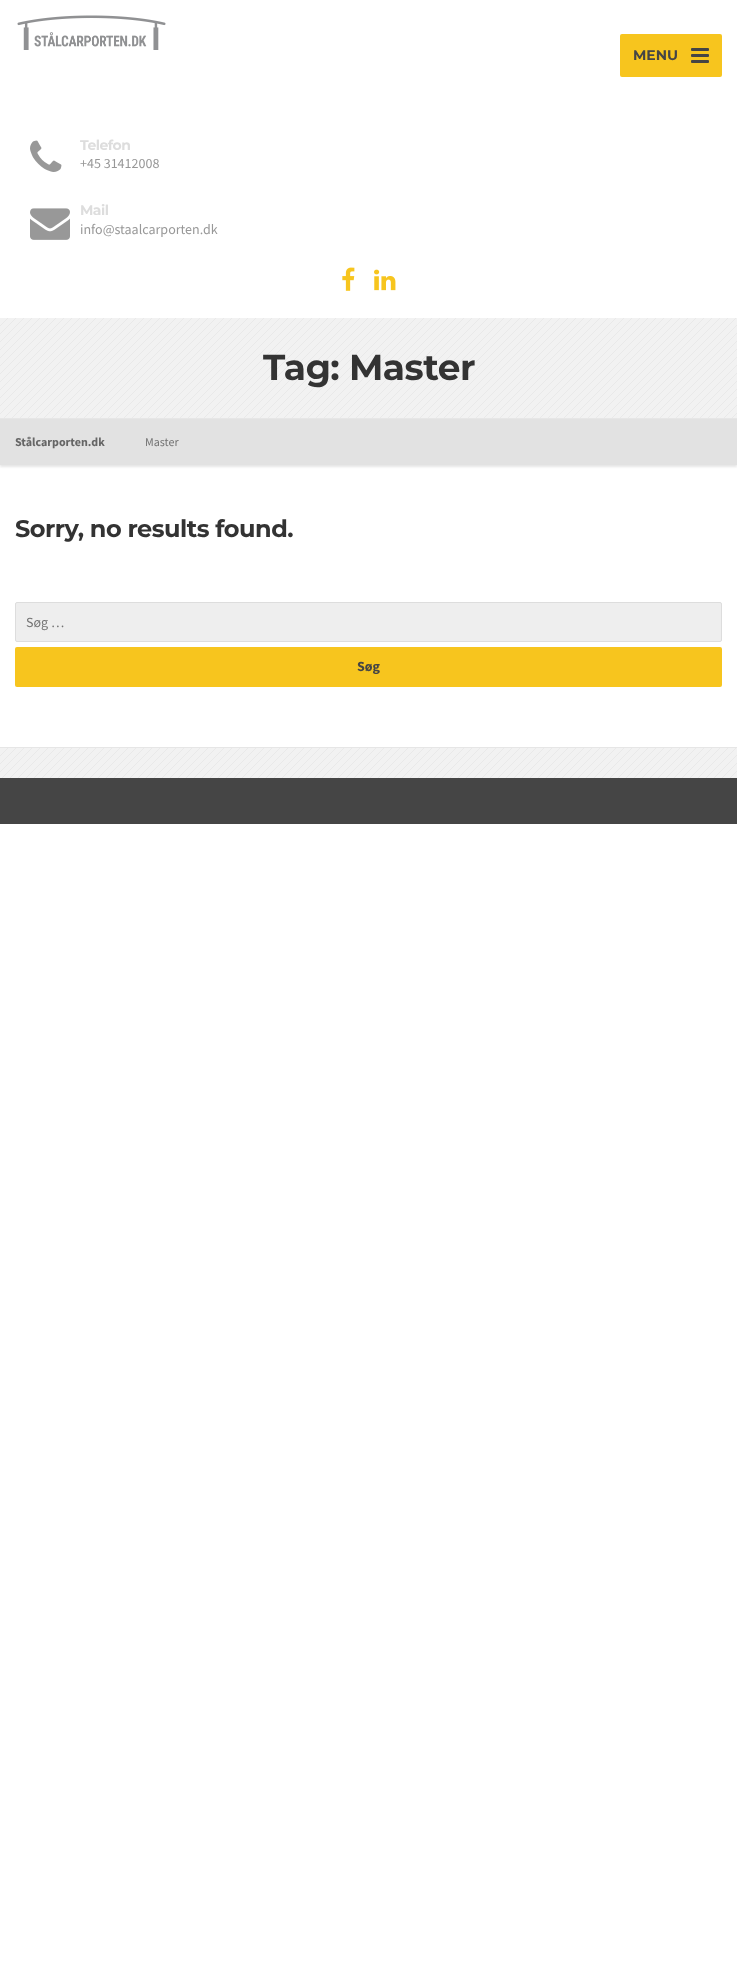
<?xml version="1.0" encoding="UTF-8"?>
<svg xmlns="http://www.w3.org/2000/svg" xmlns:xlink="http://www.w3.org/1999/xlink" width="737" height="1976">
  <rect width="100%" height="100%" fill="#ffffff" />
  <image x="17" y="15" width="149" height="35" xlink:href="image1.png" />
  <rect x="620" y="34" width="102" height="43" rx="2" fill="#f7c51e" />
  <rect x="691" y="48" width="18" height="3" rx="1" fill="#454545" />
  <rect x="691" y="54" width="18" height="3" rx="1" fill="#454545" />
  <rect x="691" y="60" width="18" height="3" rx="1" fill="#454545" />
  <image x="30" y="140" width="32" height="32" xlink:href="image2.png" />
  <image x="30" y="208" width="40" height="32" xlink:href="image3.png" />
  <image x="342" y="267" width="13" height="24" xlink:href="image4.png" />
  <image x="374" y="269" width="22" height="22" xlink:href="image5.png" />
  <rect y="318" width="737" height="100" fill="#f2f2f2" />
  <image x="0" y="318" width="737" height="100" xlink:href="image6.png" />
  <rect y="418" width="737" height="1" fill="#e6e6e6" />
  <rect y="421" width="737" height="46" fill="#e6e6e6" filter="blur(1px)" />
  <rect y="419" width="737" height="46" fill="#e2e2e2" />
  <rect x="15.5" y="602.5" width="706" height="39" rx="1.5" fill="#eeeeee" stroke="#dddddd" />
  <rect x="15" y="647" width="707" height="40" rx="2" fill="#f7c51e" />
  <rect y="748" width="737" height="30" fill="#f2f2f2" />
  <image x="0" y="748" width="737" height="30" xlink:href="image7.png" />
  <rect y="747" width="737" height="1" fill="#e6e6e6" />
  <rect y="778" width="737" height="46" fill="#454545" />
  <text x="633" y="60" style="font-family: Montserrat; font-size: 14px; font-weight: bold; fill: #454545">MENU</text>
  <text x="80" y="150" style="font-family: Montserrat; font-size: 14px; font-weight: bold; letter-spacing: -0.5px; fill: #dddddd">Telefon</text>
  <text x="80" y="168" style="font-family: Source Sans Pro; font-size: 14px; fill: #989898">+45 31412008</text>
  <text x="80" y="215" style="font-family: Montserrat; font-size: 14px; font-weight: bold; letter-spacing: -0.5px; fill: #dddddd">Mail</text>
  <text x="80" y="234" style="font-family: Source Sans Pro; font-size: 14px; fill: #989898">info@staalcarporten.dk</text>
  <text x="263" y="380" style="font-family: Montserrat; font-size: 36px; font-weight: bold; letter-spacing: -0.5px; fill: #333333">Tag: Master</text>
  <text x="15" y="446" style="font-family: Source Sans Pro; font-size: 12px; font-weight: bold; fill: #666666">Stålcarporten.dk</text>
  <text x="145" y="446" style="font-family: Source Sans Pro; font-size: 12px; fill: #727272">Master</text>
  <text x="15" y="537" style="font-family: Montserrat; font-size: 24px; font-weight: bold; letter-spacing: -0.5px; fill: #333333">Sorry, no results found.</text>
  <text x="26" y="627" style="font-family: Source Sans Pro; font-size: 14px; fill: #727272">Søg …</text>
  <text x="357" y="671" style="font-family: Source Sans Pro; font-size: 14px; font-weight: bold; fill: #454545">Søg</text>
</svg>
